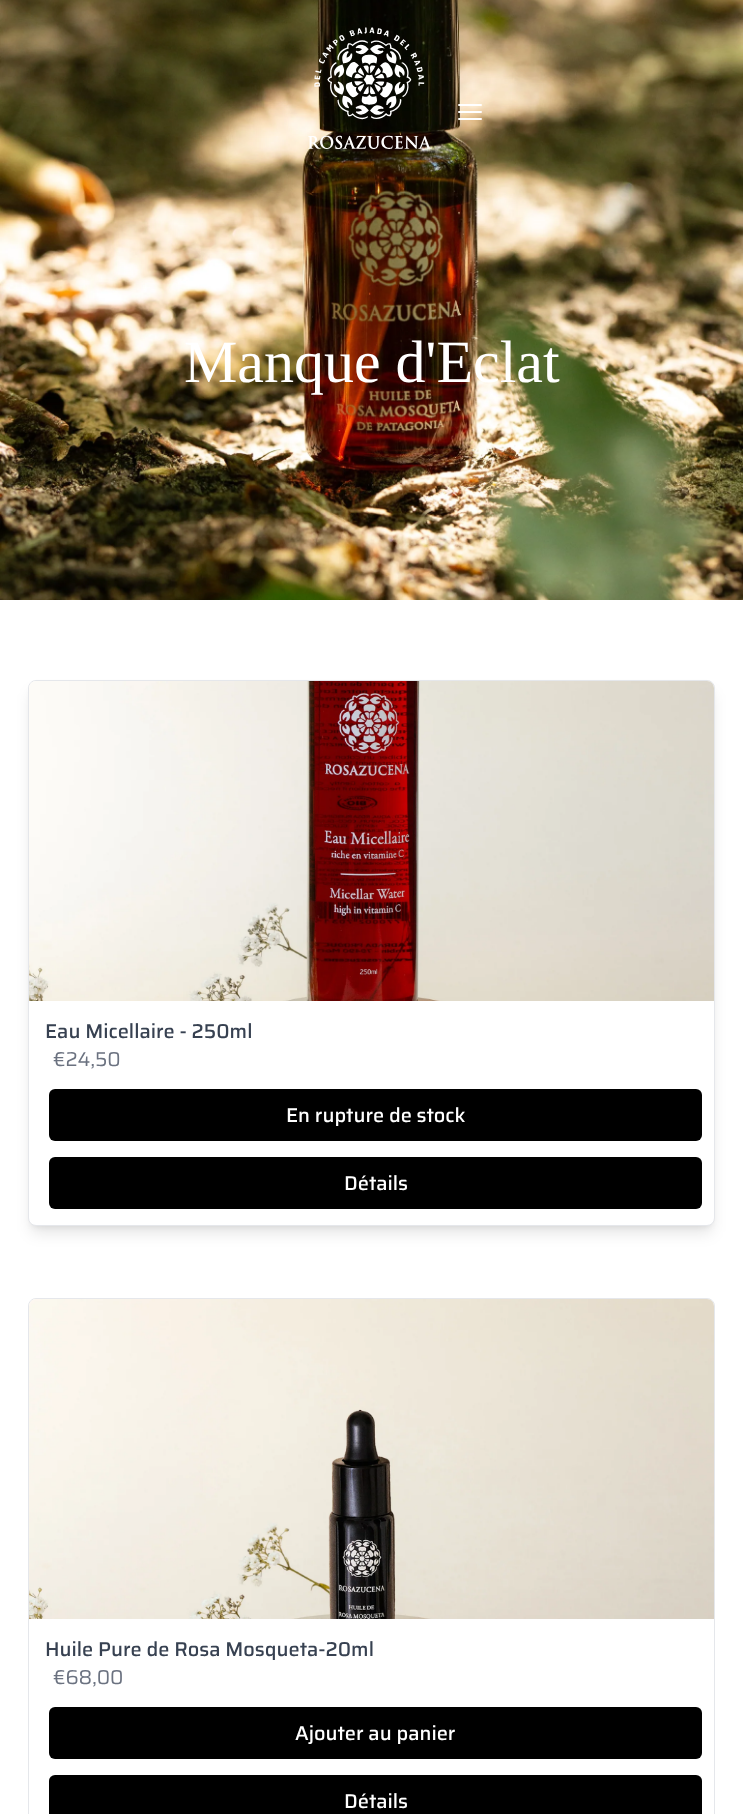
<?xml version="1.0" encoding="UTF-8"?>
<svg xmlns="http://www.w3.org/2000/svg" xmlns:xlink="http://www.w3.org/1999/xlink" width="743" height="1814">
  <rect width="100%" height="100%" fill="#ffffff" />
  <image x="0" y="0" width="743" height="600" xlink:href="image1.png" />
  <image x="308" y="27" width="124" height="122" xlink:href="image2.png" />
  <path d="M 459 105 h 22 m -22 7 h 22 m -22 7 h 22" fill="none" stroke="#ffffff" stroke-width="2" stroke-linecap="round" stroke-linejoin="round" />
  <rect x="32" y="688" width="679" height="538" rx="4" fill="#000000" fill-opacity="0.1" filter="blur(3px)" />
  <rect x="31" y="693" width="681" height="540" rx="5" fill="#000000" fill-opacity="0.1" filter="blur(7.5px)" />
  <rect x="28.5" y="680.5" width="686" height="545" rx="7.5" fill="#ffffff" stroke="#e5e7eb" />
  <image x="29" y="681" width="685" height="320" xlink:href="image3.png" />
  <rect x="49" y="1089" width="653" height="52" rx="6" fill="#000000" />
  <rect x="49" y="1157" width="653" height="52" rx="6" fill="#000000" />
  <rect x="28.5" y="1298.5" width="686" height="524" rx="7.5" fill="none" stroke="#e5e7eb" />
  <image x="29" y="1299" width="685" height="320" xlink:href="image4.png" />
  <rect x="49" y="1707" width="653" height="52" rx="6" fill="#000000" />
  <rect x="49" y="1775" width="653" height="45" rx="6" fill="#000000" />
  <text x="184" y="382" style="font-family: Liberation Serif; font-size: 60px; fill: #ffffff">Manque d'Eclat</text>
  <text x="45" y="1038" style="font-family: Saira; font-size: 20px; font-weight: 100; fill: #374151">Eau Micellaire - 250ml</text>
  <text x="53" y="1066" style="font-family: Saira; font-size: 20px; fill: #6b7280">€24,50</text>
  <text x="286" y="1122" style="font-family: Saira; font-size: 20px; font-weight: 100; fill: #ffffff">En rupture de stock</text>
  <text x="344" y="1190" style="font-family: Saira; font-size: 20px; font-weight: 100; fill: #ffffff">Détails</text>
  <text x="45" y="1656" style="font-family: Saira; font-size: 20px; font-weight: 100; fill: #374151">Huile Pure de Rosa Mosqueta-20ml</text>
  <text x="53" y="1684" style="font-family: Saira; font-size: 20px; fill: #6b7280">€68,00</text>
  <text x="295" y="1740" style="font-family: Saira; font-size: 20px; font-weight: 100; fill: #ffffff">Ajouter au panier</text>
  <text x="344" y="1808" style="font-family: Saira; font-size: 20px; font-weight: 100; fill: #ffffff">Détails</text>
</svg>
